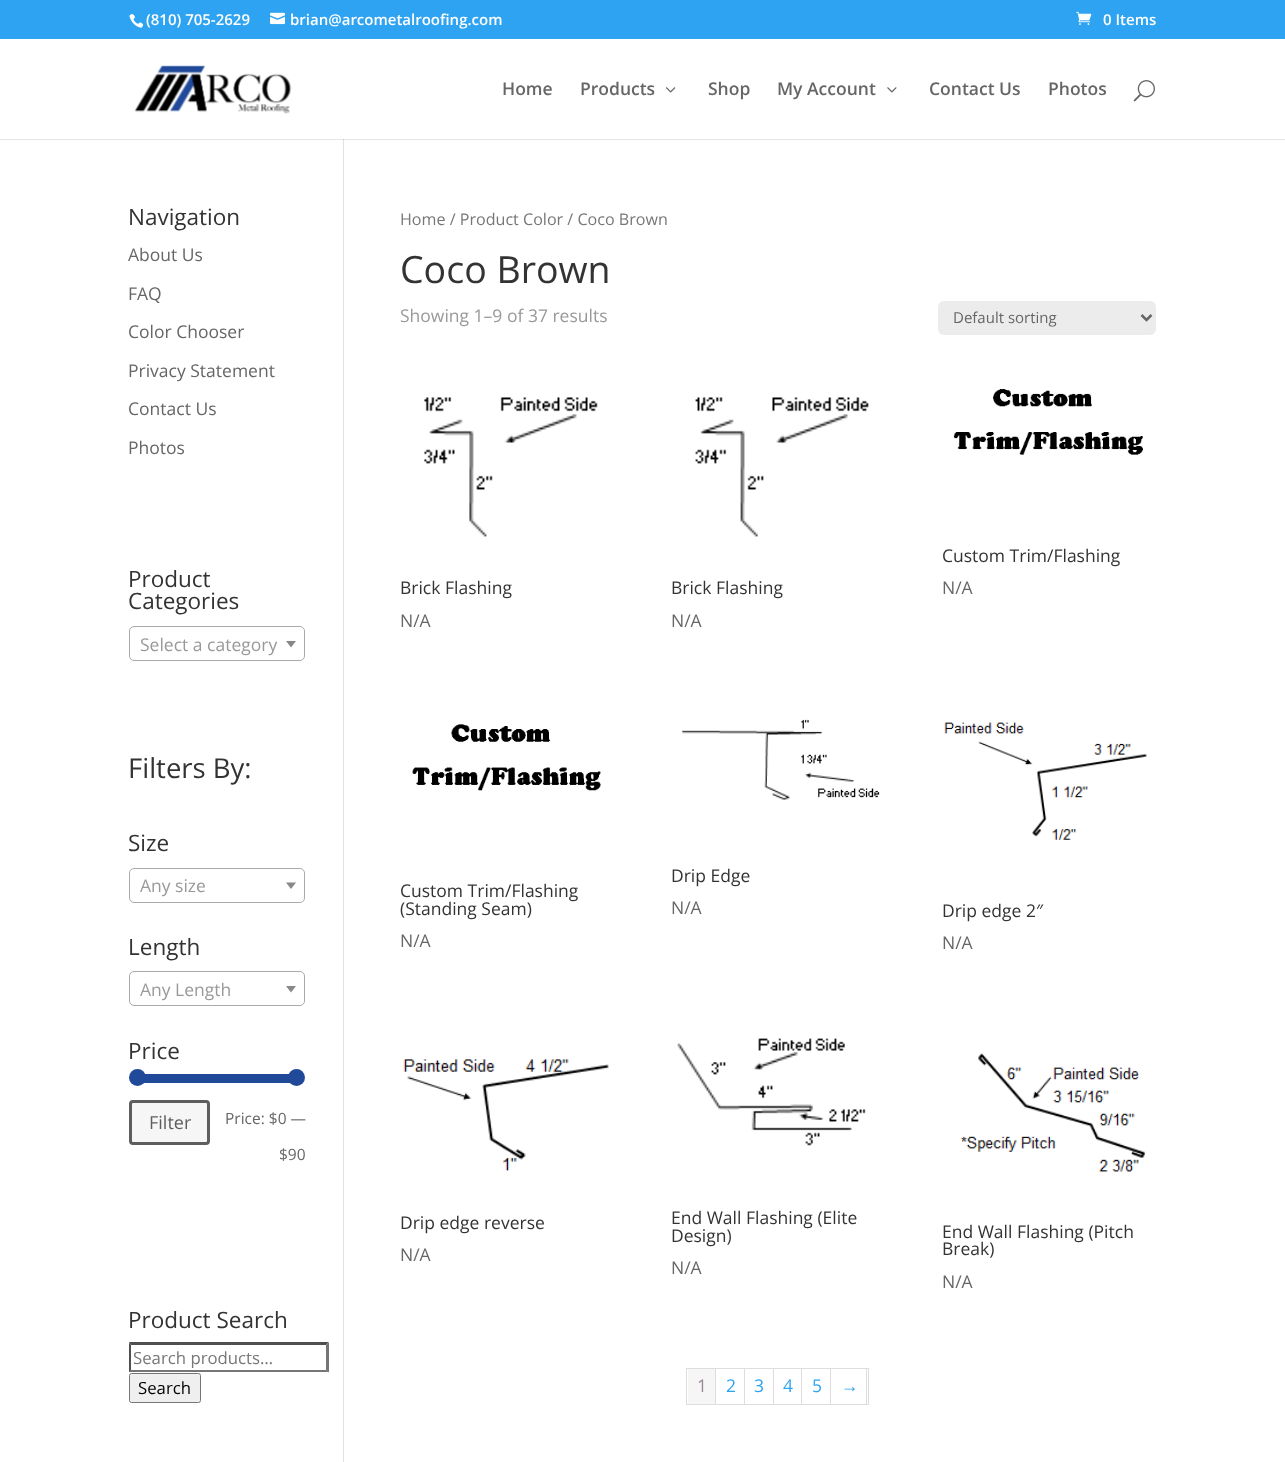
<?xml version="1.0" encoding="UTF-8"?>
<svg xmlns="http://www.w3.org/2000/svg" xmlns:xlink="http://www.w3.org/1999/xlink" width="1285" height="1462">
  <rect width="100%" height="100%" fill="#ffffff" />
  <rect width="1285" height="39" fill="#2ea3f2" />
  <image x="129" y="14" width="15" height="14" xlink:href="image1.png" />
  <image x="270" y="12" width="15" height="13" xlink:href="image2.png" />
  <image x="1076" y="11" width="16" height="14" xlink:href="image3.png" />
  <rect x="343" y="133" width="1" height="1329" fill="#e2e2e2" />
  <rect y="139" width="1285" height="1" fill="#000000" fill-opacity="0.1" />
  <rect x="343" y="133" width="1" height="6" fill="#ffffff" />
  <image x="134" y="65" width="158" height="49" xlink:href="image4.png" />
  <image x="666" y="87" width="10" height="6" xlink:href="image5.png" />
  <image x="887" y="87" width="10" height="6" xlink:href="image6.png" />
  <image x="1133" y="80" width="22" height="22" xlink:href="image7.png" />
  <rect x="129.5" y="626.5" width="175" height="34" rx="4.5" fill="none" stroke="#aaaaaa" />
  <path d="M 286 641 h 10 l -5 6.5 z" fill="#888888" />
  <rect x="129.5" y="868.5" width="175" height="34" rx="4.5" fill="none" stroke="#aaaaaa" />
  <path d="M 286 882.5 h 10 l -5 6.5 z" fill="#888888" />
  <rect x="129.5" y="971.5" width="175" height="34" rx="4.5" fill="none" stroke="#aaaaaa" />
  <path d="M 286 986 h 10 l -5 6.5 z" fill="#888888" />
  <rect x="144" y="1074" width="146" height="9" fill="#21499a" />
  <circle cx="137.5" cy="1077.5" r="8.5" fill="#21499a" />
  <circle cx="296.5" cy="1077.5" r="8.5" fill="#21499a" />
  <rect x="130.5" y="1101.5" width="78" height="42" rx="2.5" fill="#f7f6f7" stroke="#5e5e5e" stroke-width="3" />
  <path d="M 129 1342 h 200 l -3 3 h -195 z" fill="#4f4f4f" />
  <path d="M 329 1342.5 v 30 l -3 -2.5 v -25 z" fill="#767676" />
  <path d="M 329 1372 h -200 l 2 -2 h 195 z" fill="#767676" />
  <path d="M 129 1372.5 v -30 l 2 2.5 v 25 z" fill="#4f4f4f" />
  <rect x="129.5" y="1373.5" width="71" height="29" rx="2" fill="#efefef" stroke="#767676" />
  <rect x="938" y="301" width="218" height="34" rx="6" fill="#ececec" />
  <path d="M 1141.5 315 l 5 5 l 5 -5" fill="none" stroke="#666666" stroke-width="2.5" />
  <image x="953" y="389" width="190" height="66" xlink:href="image8.png" />
  <image x="424" y="397" width="174" height="140" xlink:href="image9.png" />
  <image x="695" y="397" width="174" height="140" xlink:href="image10.png" />
  <image x="412" y="724" width="189" height="67" xlink:href="image11.png" />
  <image x="681" y="719" width="199" height="81" xlink:href="image12.png" />
  <image x="944" y="722" width="203" height="118" xlink:href="image13.png" />
  <image x="403" y="1059" width="206" height="112" xlink:href="image14.png" />
  <image x="677" y="1038" width="189" height="108" xlink:href="image15.png" />
  <image x="960" y="1053" width="185" height="119" xlink:href="image16.png" />
  <rect x="686.5" y="1368.5" width="182" height="36" fill="none" stroke="#dfdbdf" />
  <rect x="715" y="1369" width="1" height="35" fill="#dfdbdf" />
  <rect x="688" y="1369" width="27" height="35" fill="#f7f6f7" />
  <rect x="744" y="1369" width="1" height="35" fill="#dfdbdf" />
  <rect x="773" y="1369" width="1" height="35" fill="#dfdbdf" />
  <rect x="801" y="1369" width="1" height="35" fill="#dfdbdf" />
  <rect x="830" y="1369" width="1" height="35" fill="#dfdbdf" />
  <rect x="866" y="1369" width="1" height="35" fill="#dfdbdf" />
  <text x="146" y="25" style="font-family: Open Sans; font-size: 15px; font-weight: 600; fill: #ffffff">(810) 705-2629</text>
  <text x="290" y="25" style="font-family: Open Sans; font-size: 15px; font-weight: 600; fill: #ffffff">brian@arcometalroofing.com</text>
  <text x="1103" y="25" style="font-family: Open Sans; font-size: 15px; font-weight: 600; fill: #ffffff">0 Items</text>
  <text x="502" y="95" style="font-family: Open Sans; font-size: 17.5px; font-weight: 600; fill: #666666">Home</text>
  <text x="580" y="95" style="font-family: Open Sans; font-size: 17.5px; font-weight: 600; fill: #666666">Products</text>
  <text x="708" y="95" style="font-family: Open Sans; font-size: 17.5px; font-weight: 600; fill: #666666">Shop</text>
  <text x="777" y="95" style="font-family: Open Sans; font-size: 17.5px; font-weight: 600; fill: #666666">My Account</text>
  <text x="929" y="95" style="font-family: Open Sans; font-size: 17.5px; font-weight: 600; fill: #666666">Contact Us</text>
  <text x="1048" y="95" style="font-family: Open Sans; font-size: 17.5px; font-weight: 600; fill: #666666">Photos</text>
  <text x="128" y="225" style="font-family: Open Sans; font-size: 22.5px; fill: #333333">Navigation</text>
  <text x="128" y="261" style="font-family: Open Sans; font-size: 17.5px; fill: #666666">About Us</text>
  <text x="128" y="300" style="font-family: Open Sans; font-size: 17.5px; fill: #666666">FAQ</text>
  <text x="128" y="338" style="font-family: Open Sans; font-size: 17.5px; fill: #666666">Color Chooser</text>
  <text x="128" y="377" style="font-family: Open Sans; font-size: 17.5px; fill: #666666">Privacy Statement</text>
  <text x="128" y="415" style="font-family: Open Sans; font-size: 17.5px; fill: #666666">Contact Us</text>
  <text x="128" y="454" style="font-family: Open Sans; font-size: 17.5px; fill: #666666">Photos</text>
  <text x="128" y="587" style="font-family: Open Sans; font-size: 22.5px; fill: #333333">Product</text>
  <text x="128" y="609" style="font-family: Open Sans; font-size: 22.5px; fill: #333333">Categories</text>
  <text x="140" y="651" style="font-family: Open Sans; font-size: 17.5px; fill: #999999">Select a category</text>
  <text x="128" y="778" style="font-family: Open Sans; font-size: 27.5px; fill: #333333">Filters By:</text>
  <text x="128" y="851" style="font-family: Open Sans; font-size: 22.5px; fill: #333333">Size</text>
  <text x="140" y="892" style="font-family: Open Sans; font-size: 17.5px; fill: #999999">Any size</text>
  <text x="128" y="955" style="font-family: Open Sans; font-size: 22.5px; fill: #333333">Length</text>
  <text x="140" y="996" style="font-family: Open Sans; font-size: 17.5px; fill: #999999">Any Length</text>
  <text x="128" y="1059" style="font-family: Open Sans; font-size: 22.5px; fill: #333333">Price</text>
  <text x="149" y="1129" style="font-family: Open Sans; font-size: 18px; fill: #5e5e5e">Filter</text>
  <text x="225" y="1124" style="font-family: Open Sans; font-size: 15.5px; fill: #666666">Price: $0 —</text>
  <text x="279" y="1160" style="font-family: Open Sans; font-size: 15.5px; fill: #666666">$90</text>
  <text x="128" y="1328" style="font-family: Open Sans; font-size: 22.5px; fill: #333333">Product Search</text>
  <text x="133" y="1364" style="font-family: Open Sans; font-size: 16.75px; fill: #777777">Search products…</text>
  <text x="138" y="1394" style="font-family: Open Sans; font-size: 16.75px; fill: #000000">Search</text>
  <text x="400" y="225" style="font-family: Open Sans; font-size: 16.1px; fill: #777777">Home / Product Color / Coco Brown</text>
  <text x="400" y="283" style="font-family: Open Sans; font-size: 37.5px; fill: #333333">Coco Brown</text>
  <text x="400" y="322" style="font-family: Open Sans; font-size: 17.5px; fill: #999999">Showing 1–9 of 37 results</text>
  <text x="953" y="323" style="font-family: Open Sans; font-size: 15px; fill: #666666">Default sorting</text>
  <text x="942" y="562" style="font-family: Open Sans; font-size: 17.5px; fill: #333333">Custom Trim/Flashing</text>
  <text x="942" y="594" style="font-family: Open Sans; font-size: 17.5px; fill: #666666">N/A</text>
  <text x="400" y="594" style="font-family: Open Sans; font-size: 17.5px; fill: #333333">Brick Flashing</text>
  <text x="400" y="627" style="font-family: Open Sans; font-size: 17.5px; fill: #666666">N/A</text>
  <text x="671" y="594" style="font-family: Open Sans; font-size: 17.5px; fill: #333333">Brick Flashing</text>
  <text x="671" y="627" style="font-family: Open Sans; font-size: 17.5px; fill: #666666">N/A</text>
  <text x="400" y="897" style="font-family: Open Sans; font-size: 17.5px; fill: #333333">Custom Trim/Flashing</text>
  <text x="400" y="915" style="font-family: Open Sans; font-size: 17.5px; fill: #333333">(Standing Seam)</text>
  <text x="400" y="947" style="font-family: Open Sans; font-size: 17.5px; fill: #666666">N/A</text>
  <text x="671" y="882" style="font-family: Open Sans; font-size: 17.5px; fill: #333333">Drip Edge</text>
  <text x="671" y="914" style="font-family: Open Sans; font-size: 17.5px; fill: #666666">N/A</text>
  <text x="942" y="917" style="font-family: Open Sans; font-size: 17.5px; fill: #333333">Drip edge 2″</text>
  <text x="942" y="949" style="font-family: Open Sans; font-size: 17.5px; fill: #666666">N/A</text>
  <text x="400" y="1229" style="font-family: Open Sans; font-size: 17.5px; fill: #333333">Drip edge reverse</text>
  <text x="400" y="1261" style="font-family: Open Sans; font-size: 17.5px; fill: #666666">N/A</text>
  <text x="671" y="1224" style="font-family: Open Sans; font-size: 17.5px; fill: #333333">End Wall Flashing (Elite</text>
  <text x="671" y="1242" style="font-family: Open Sans; font-size: 17.5px; fill: #333333">Design)</text>
  <text x="671" y="1274" style="font-family: Open Sans; font-size: 17.5px; fill: #666666">N/A</text>
  <text x="942" y="1238" style="font-family: Open Sans; font-size: 17.5px; fill: #333333">End Wall Flashing (Pitch</text>
  <text x="942" y="1255" style="font-family: Open Sans; font-size: 17.5px; fill: #333333">Break)</text>
  <text x="942" y="1288" style="font-family: Open Sans; font-size: 17.5px; fill: #666666">N/A</text>
  <text x="697" y="1392" style="font-family: Open Sans; font-size: 17.5px; fill: #978a97">1</text>
  <text x="726" y="1392" style="font-family: Open Sans; font-size: 17.5px; fill: #2ea3f2">2</text>
  <text x="754" y="1392" style="font-family: Open Sans; font-size: 17.5px; fill: #2ea3f2">3</text>
  <text x="783" y="1392" style="font-family: Open Sans; font-size: 17.5px; fill: #2ea3f2">4</text>
  <text x="812" y="1392" style="font-family: Open Sans; font-size: 17.5px; fill: #2ea3f2">5</text>
  <text x="841" y="1392" style="font-family: Liberation Sans; font-size: 17.5px; fill: #2ea3f2">→</text>
</svg>
